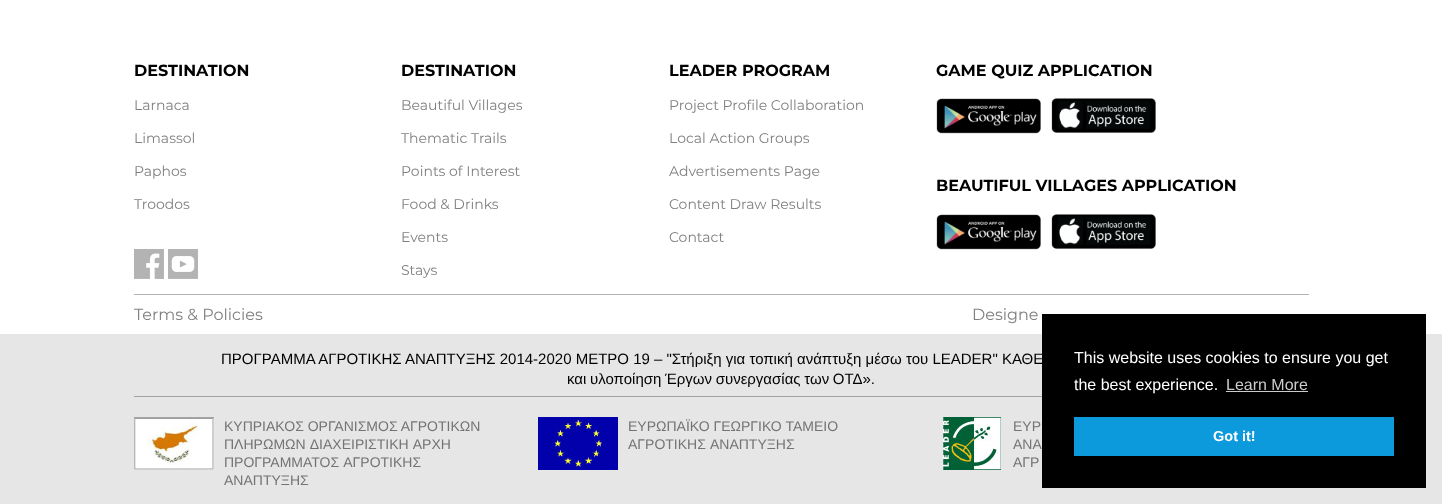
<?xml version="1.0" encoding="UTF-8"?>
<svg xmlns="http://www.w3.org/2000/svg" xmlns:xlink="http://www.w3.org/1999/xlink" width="1442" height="504">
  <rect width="100%" height="100%" fill="#ffffff" />
  <image x="134" y="249" width="30" height="30" xlink:href="image1.png" />
  <image x="168" y="249" width="30" height="30" xlink:href="image2.png" />
  <image x="936" y="98" width="105" height="36" xlink:href="image3.png" />
  <image x="1051" y="98" width="105" height="35" xlink:href="image4.png" />
  <image x="936" y="214" width="105" height="36" xlink:href="image3.png" />
  <image x="1051" y="214" width="105" height="35" xlink:href="image4.png" />
  <rect x="134" y="294" width="1175" height="1" fill="#b3b3b3" />
  <rect y="334" width="1442" height="170" fill="#e6e6e6" />
  <rect x="134" y="396" width="908" height="1" fill="#a1a1a1" />
  <image x="134" y="417" width="80" height="53" xlink:href="image5.png" />
  <image x="538" y="417" width="80" height="53" xlink:href="image6.png" />
  <image x="943" y="417" width="58" height="53" xlink:href="image7.png" />
  <text x="134" y="76" style="font-family: Montserrat; font-size: 16px; font-weight: bold; fill: #000000">DESTINATION</text>
  <text x="134" y="110" style="font-family: Montserrat; font-size: 14px; fill: #808080">Larnaca</text>
  <text x="134" y="143" style="font-family: Montserrat; font-size: 14px; fill: #808080">Limassol</text>
  <text x="134" y="176" style="font-family: Montserrat; font-size: 14px; fill: #808080">Paphos</text>
  <text x="134" y="209" style="font-family: Montserrat; font-size: 14px; fill: #808080">Troodos</text>
  <text x="401" y="76" style="font-family: Montserrat; font-size: 16px; font-weight: bold; fill: #000000">DESTINATION</text>
  <text x="401" y="110" style="font-family: Montserrat; font-size: 14px; fill: #808080">Beautiful Villages</text>
  <text x="401" y="143" style="font-family: Montserrat; font-size: 14px; fill: #808080">Thematic Trails</text>
  <text x="401" y="176" style="font-family: Montserrat; font-size: 14px; fill: #808080">Points of Interest</text>
  <text x="401" y="209" style="font-family: Montserrat; font-size: 14px; fill: #808080">Food &amp; Drinks</text>
  <text x="401" y="242" style="font-family: Montserrat; font-size: 14px; fill: #808080">Events</text>
  <text x="401" y="275" style="font-family: Montserrat; font-size: 14px; fill: #808080">Stays</text>
  <text x="669" y="76" style="font-family: Montserrat; font-size: 16px; font-weight: bold; fill: #000000">LEADER PROGRAM</text>
  <text x="669" y="110" style="font-family: Montserrat; font-size: 14px; fill: #808080">Project Profile Collaboration</text>
  <text x="669" y="143" style="font-family: Montserrat; font-size: 14px; fill: #808080">Local Action Groups</text>
  <text x="669" y="176" style="font-family: Montserrat; font-size: 14px; fill: #808080">Advertisements Page</text>
  <text x="669" y="209" style="font-family: Montserrat; font-size: 14px; fill: #808080">Content Draw Results</text>
  <text x="669" y="242" style="font-family: Montserrat; font-size: 14px; fill: #808080">Contact</text>
  <text x="936" y="76" style="font-family: Montserrat; font-size: 16px; font-weight: bold; fill: #000000">GAME QUIZ APPLICATION</text>
  <text x="936" y="191" style="font-family: Montserrat; font-size: 16px; font-weight: bold; fill: #000000">BEAUTIFUL VILLAGES APPLICATION</text>
  <text x="134" y="320" style="font-family: Montserrat; font-size: 16px; fill: #808080">Terms &amp; Policies</text>
  <text x="972" y="320" style="font-family: Montserrat; font-size: 16px; fill: #808080">Designe</text>
  <text x="221" y="364" style="font-family: Liberation Sans; font-size: 15px; fill: #000000">ΠΡΟΓΡΑΜΜΑ ΑΓΡΟΤΙΚΗΣ ΑΝΑΠΤΥΞΗΣ 2014-2020 ΜΕΤΡΟ 19 – "Στήριξη για τοπική ανάπτυξη μέσω του LEADER" ΚΑΘΕ</text>
  <text x="567" y="384" word-spacing="-0.5" style="font-family: Liberation Sans; font-size: 15px; fill: #000000">και υλοποίηση Έργων συνεργασίας των ΟΤΔ».</text>
  <text x="224" y="431" style="font-family: Liberation Sans; font-size: 14px; fill: #737373">ΚΥΠΡΙΑΚΟΣ ΟΡΓΑΝΙΣΜΟΣ ΑΓΡΟΤΙΚΩΝ</text>
  <text x="224" y="449" word-spacing="1" style="font-family: Liberation Sans; font-size: 14px; fill: #737373">ΠΛΗΡΩΜΩΝ ΔΙΑΧΕΙΡΙΣΤΙΚΗ ΑΡΧΗ</text>
  <text x="224" y="467" word-spacing="1" style="font-family: Liberation Sans; font-size: 14px; fill: #737373">ΠΡΟΓΡΑΜΜΑΤΟΣ ΑΓΡΟΤΙΚΗΣ</text>
  <text x="224" y="485" style="font-family: Liberation Sans; font-size: 14px; fill: #737373">ΑΝΑΠΤΥΞΗΣ</text>
  <text x="628" y="431" style="font-family: Liberation Sans; font-size: 14px; fill: #737373">ΕΥΡΩΠΑΪΚΟ ΓΕΩΡΓΙΚΟ ΤΑΜΕΙΟ</text>
  <text x="628" y="449" word-spacing="1" style="font-family: Liberation Sans; font-size: 14px; fill: #737373">ΑΓΡΟΤΙΚΗΣ ΑΝΑΠΤΥΞΗΣ</text>
  <text x="1013" y="431" style="font-family: Liberation Sans; font-size: 14px; fill: #737373">ΕΥΡ</text>
  <text x="1013" y="449" style="font-family: Liberation Sans; font-size: 14px; fill: #737373">ΑΝΑ</text>
  <text x="1013" y="467" style="font-family: Liberation Sans; font-size: 14px; fill: #737373">ΑΓΡ</text>
  <rect x="1042" y="314" width="384" height="174" fill="#000000" />
  <text x="1074" y="363" style="font-family: Liberation Sans; font-size: 16px; fill: #ffffff">This website uses cookies to ensure you get</text>
  <text x="1074" y="390" style="font-family: Liberation Sans; font-size: 16px; fill: #ffffff">the best experience.</text>
  <text x="1226" y="390" style="font-family: Liberation Sans; font-size: 16px; fill: #cccccc">Learn More</text>
  <rect x="1226" y="391" width="82" height="1" fill="#cccccc" />
  <rect x="1074" y="417" width="320" height="39" fill="#0c9adc" />
  <text x="1213" y="441" style="font-family: Liberation Sans; font-size: 14.5px; font-weight: bold; fill: #ffffff">Got it!</text>
</svg>
